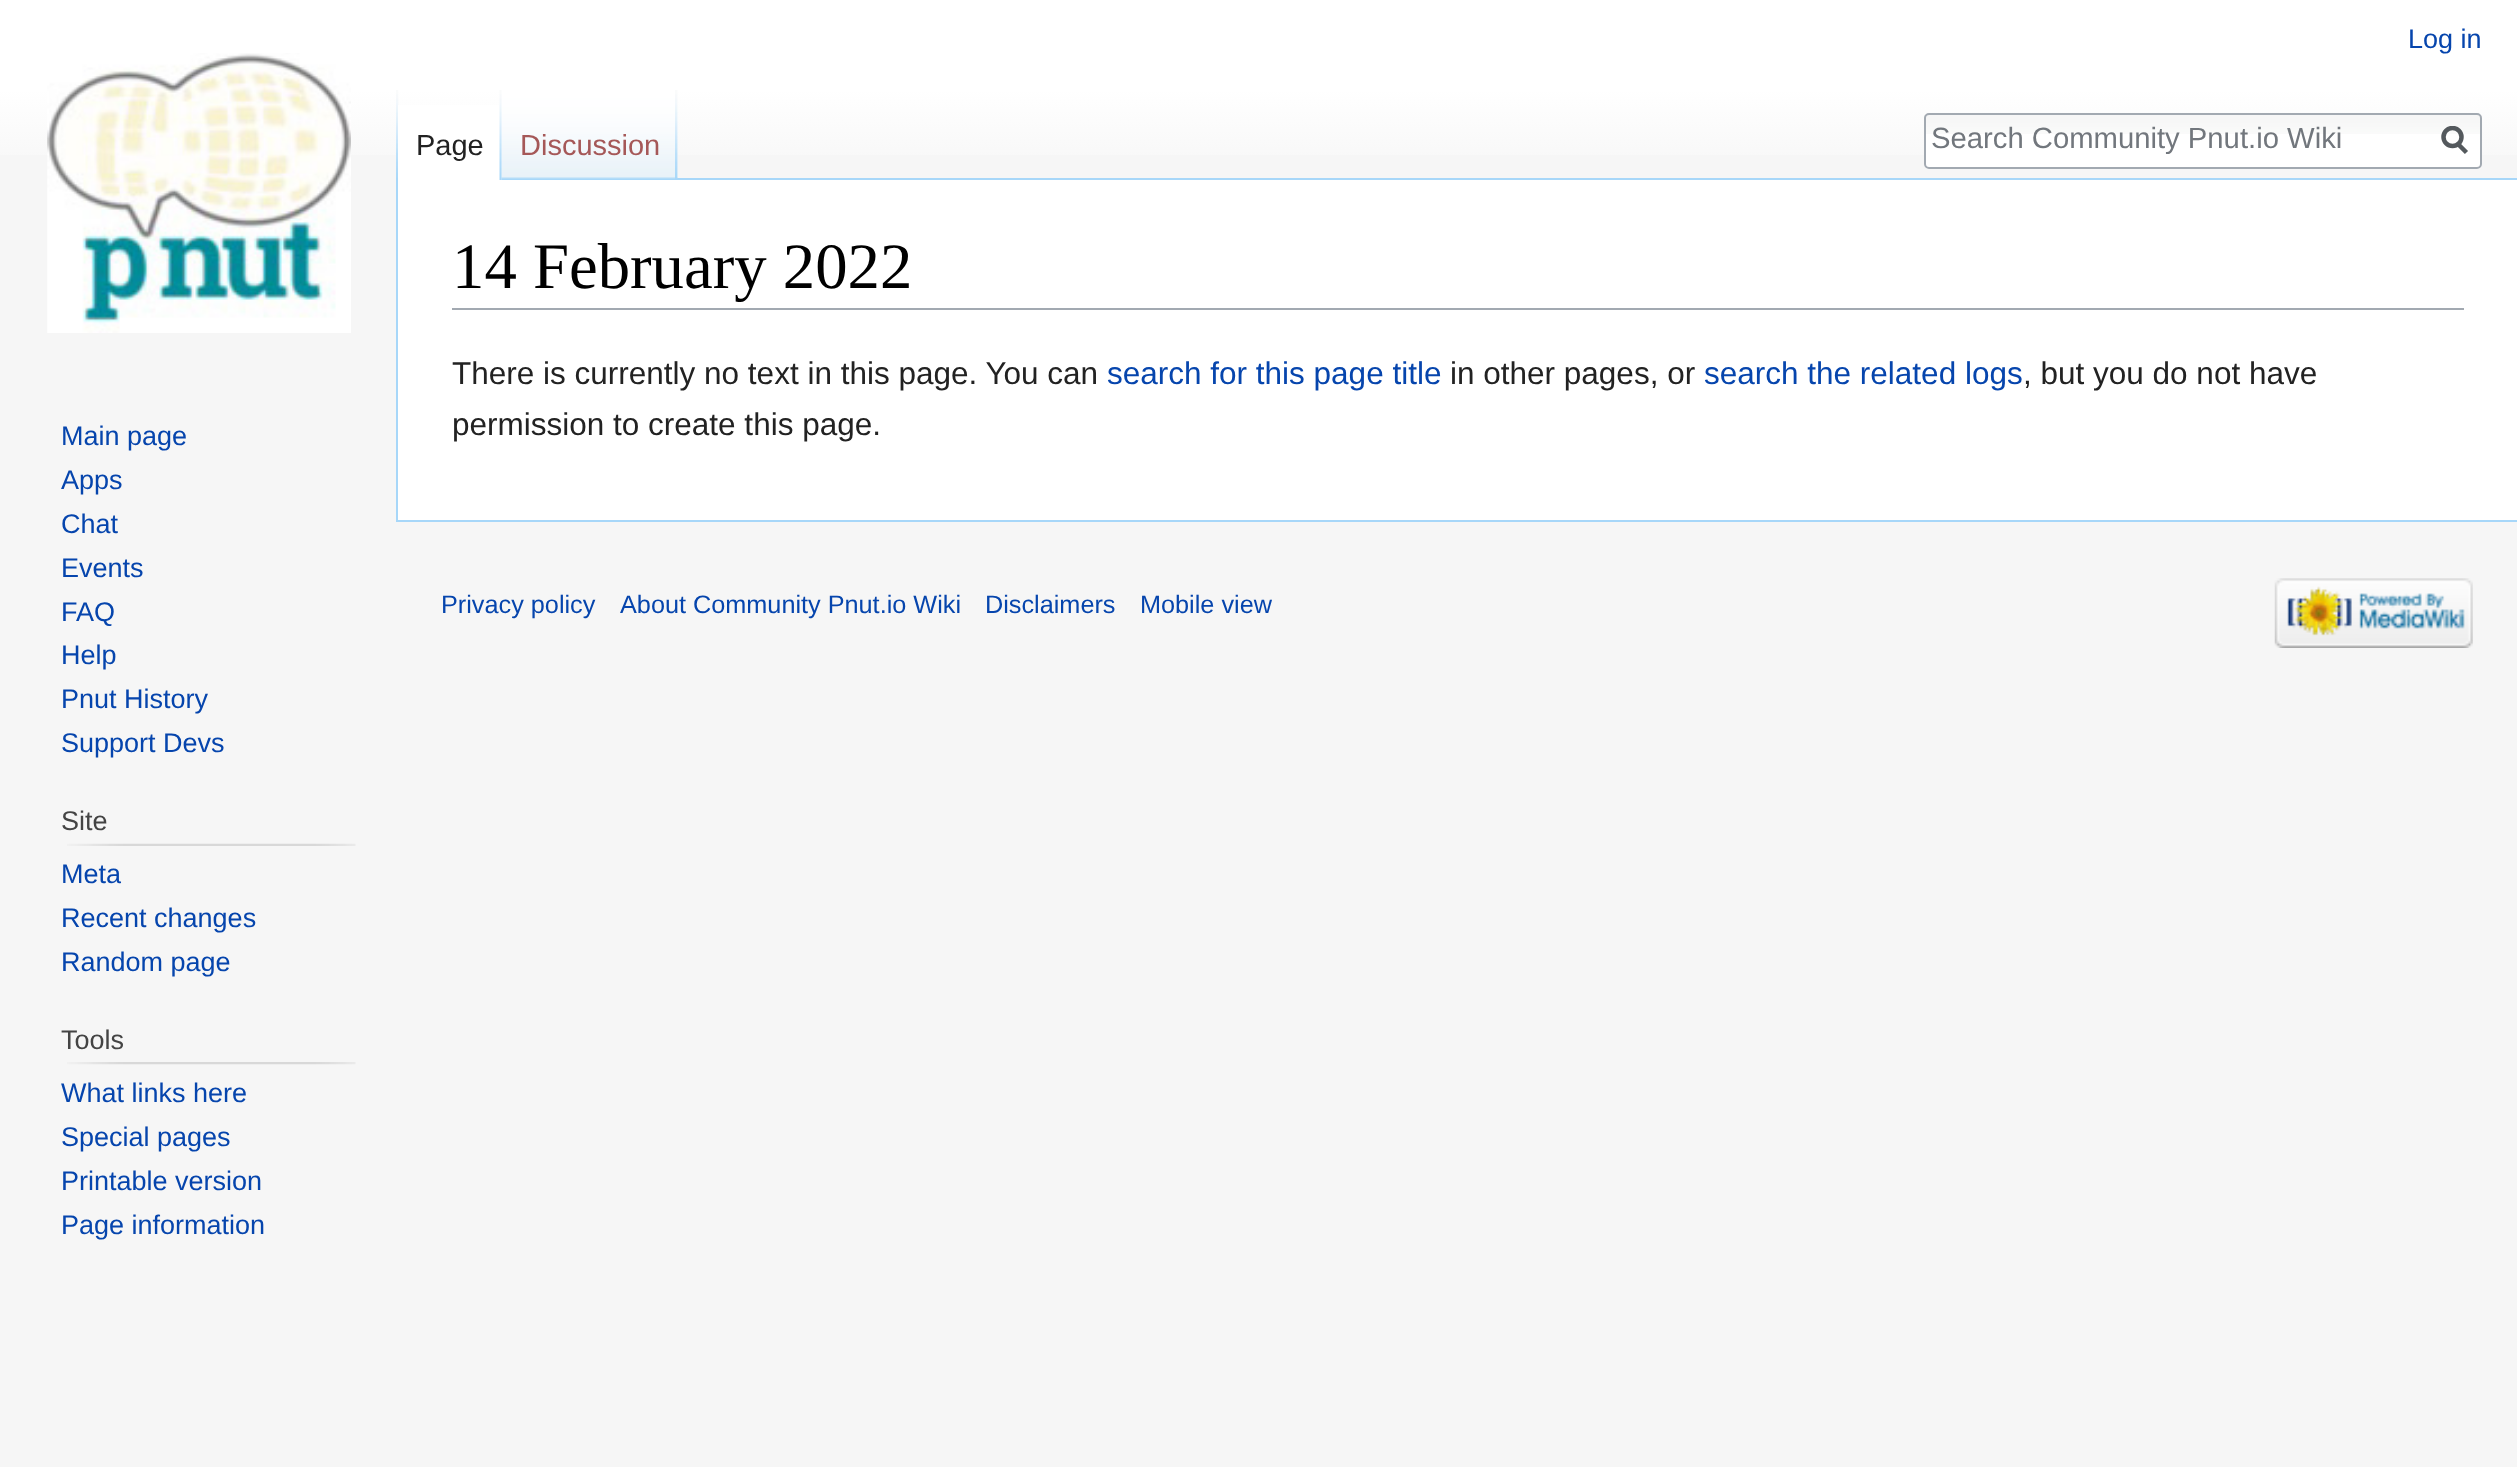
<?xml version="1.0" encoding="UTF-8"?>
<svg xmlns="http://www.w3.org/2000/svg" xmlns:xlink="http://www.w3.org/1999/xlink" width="2517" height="1467">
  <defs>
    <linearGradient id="g1" gradientUnits="userSpaceOnUse" x1="1259" y1="0" x2="1259" y2="180"><stop offset="0.5" stop-color="#ffffff" /><stop offset="1" stop-color="#f6f6f6" /></linearGradient>
    <clipPath id="clip1"><rect x="2441" y="126" width="27" height="29" /></clipPath>
  </defs>
  <rect width="100%" height="100%" fill="#f6f6f6" />
  <rect width="2517" height="155" fill="url(#g1)" />
  <image x="396" y="90" width="3" height="88" xlink:href="image1.png" />
  <image x="677" y="90" width="1" height="88" xlink:href="image2.png" />
  <rect x="398" y="105" width="104" height="75" fill="#ffffff" />
  <image x="499" y="90" width="3" height="90" xlink:href="image3.png" />
  <rect x="677" y="178" width="1840" height="2" fill="#a7d7f9" />
  <image x="501" y="90" width="177" height="90" xlink:href="image4.png" />
  <image x="675" y="90" width="3" height="89" xlink:href="image5.png" />
  <rect x="1924" y="113" width="558" height="56" rx="5" fill="#ffffff" />
  <image x="1924" y="115" width="558" height="19" xlink:href="image6.png" />
  <rect x="1925" y="114" width="556" height="54" rx="4" fill="none" stroke="#a2a9b1" stroke-width="2" />
  <path d="M 2466.5 152.5 l -9 -9" fill="none" stroke="#54595d" stroke-width="4.5" />
  <g clip-path="url(#clip1)">
    <circle cx="2452.5" cy="137" r="9" fill="none" stroke="#54595d" stroke-width="4.5" />
  </g>
  <image x="47" y="53" width="304" height="280" xlink:href="image7.png" />
  <image x="67" y="843" width="289" height="3" xlink:href="image8.png" />
  <image x="67" y="1062" width="289" height="3" xlink:href="image9.png" />
  <rect x="398" y="180" width="2119" height="340" fill="#ffffff" />
  <rect x="396" y="520" width="2121" height="2" fill="#a7d7f9" />
  <rect x="396" y="178" width="2" height="344" fill="#a7d7f9" />
  <rect x="452" y="308" width="2012" height="2" fill="#a2a9b1" />
  <image x="2274" y="578" width="199" height="70" xlink:href="image10.png" />
  <text x="2408" y="48" style="font-family: Liberation Sans; font-size: 27px; fill: #0645ad">Log in</text>
  <text x="416" y="155" style="font-family: Liberation Sans; font-size: 29px; fill: #222222">Page</text>
  <text x="520" y="155" style="font-family: Liberation Sans; font-size: 29px; fill: #a55858">Discussion</text>
  <text x="1931" y="148" style="font-family: Liberation Sans; font-size: 29.25px; fill: #72777d">Search Community Pnut.io Wiki</text>
  <text x="61" y="445" style="font-family: Liberation Sans; font-size: 27px; fill: #0645ad">Main page</text>
  <text x="61" y="489" style="font-family: Liberation Sans; font-size: 27px; fill: #0645ad">Apps</text>
  <text x="61" y="533" style="font-family: Liberation Sans; font-size: 27px; fill: #0645ad">Chat</text>
  <text x="61" y="577" style="font-family: Liberation Sans; font-size: 27px; fill: #0645ad">Events</text>
  <text x="61" y="621" style="font-family: Liberation Sans; font-size: 27px; fill: #0645ad">FAQ</text>
  <text x="61" y="664" style="font-family: Liberation Sans; font-size: 27px; fill: #0645ad">Help</text>
  <text x="61" y="708" style="font-family: Liberation Sans; font-size: 27px; fill: #0645ad">Pnut History</text>
  <text x="61" y="752" style="font-family: Liberation Sans; font-size: 27px; fill: #0645ad">Support Devs</text>
  <text x="61" y="830" style="font-family: Liberation Sans; font-size: 27px; fill: #444444">Site</text>
  <text x="61" y="883" style="font-family: Liberation Sans; font-size: 27px; fill: #0645ad">Meta</text>
  <text x="61" y="927" style="font-family: Liberation Sans; font-size: 27px; fill: #0645ad">Recent changes</text>
  <text x="61" y="971" style="font-family: Liberation Sans; font-size: 27px; fill: #0645ad">Random page</text>
  <text x="61" y="1049" style="font-family: Liberation Sans; font-size: 27px; fill: #444444">Tools</text>
  <text x="61" y="1102" style="font-family: Liberation Sans; font-size: 27px; fill: #0645ad">What links here</text>
  <text x="61" y="1146" style="font-family: Liberation Sans; font-size: 27px; fill: #0645ad">Special pages</text>
  <text x="61" y="1190" style="font-family: Liberation Sans; font-size: 27px; fill: #0645ad">Printable version</text>
  <text x="61" y="1234" style="font-family: Liberation Sans; font-size: 27px; fill: #0645ad">Page information</text>
  <text x="452" y="288" style="font-family: Liberation Serif; font-size: 64.75px; fill: #000000">14 February 2022</text>
  <text x="452" y="384" style="font-family: Liberation Sans; font-size: 31.5px; fill: #222222">There is currently no text in this page. You can</text>
  <text x="1107" y="384" style="font-family: Liberation Sans; font-size: 31.5px; fill: #0645ad">search for this page title</text>
  <text x="1450" y="384" style="font-family: Liberation Sans; font-size: 31.5px; fill: #222222">in other pages, or</text>
  <text x="1704" y="384" style="font-family: Liberation Sans; font-size: 31.5px; fill: #0645ad">search the related logs</text>
  <text x="2023" y="384" style="font-family: Liberation Sans; font-size: 31.5px; fill: #222222">, but you do not have</text>
  <text x="452" y="435" style="font-family: Liberation Sans; font-size: 31.5px; fill: #222222">permission to create this page.</text>
  <text x="441" y="613" style="font-family: Liberation Sans; font-size: 25.25px; fill: #0645ad">Privacy policy</text>
  <text x="620" y="613" style="font-family: Liberation Sans; font-size: 25.25px; fill: #0645ad">About Community Pnut.io Wiki</text>
  <text x="985" y="613" style="font-family: Liberation Sans; font-size: 25.25px; fill: #0645ad">Disclaimers</text>
  <text x="1140" y="613" style="font-family: Liberation Sans; font-size: 25.25px; fill: #0645ad">Mobile view</text>
</svg>
